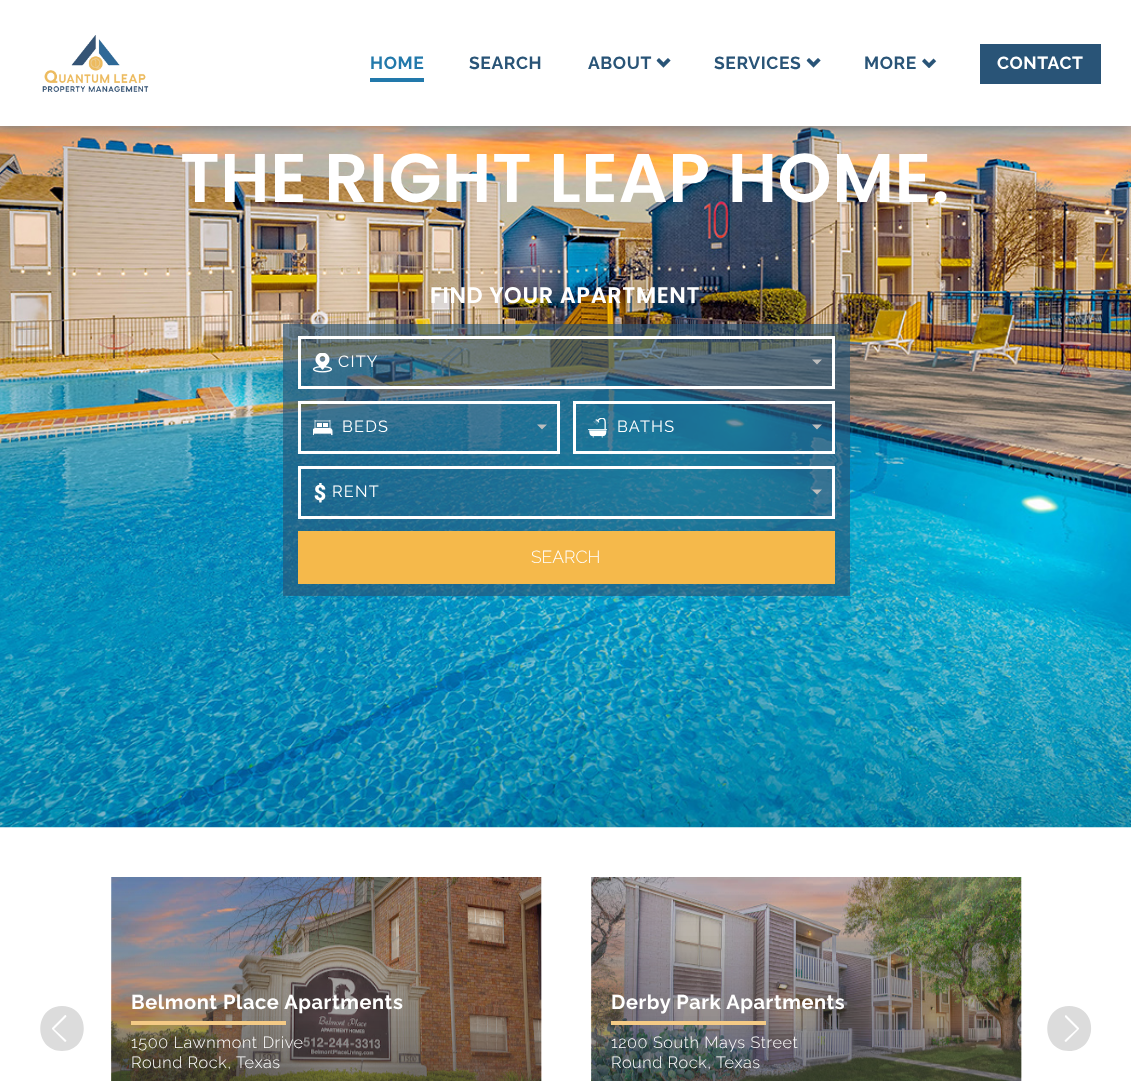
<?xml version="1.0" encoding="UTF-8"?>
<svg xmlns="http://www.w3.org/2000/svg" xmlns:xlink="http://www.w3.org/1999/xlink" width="1131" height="1081">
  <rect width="100%" height="100%" fill="#ffffff" />
  <image x="0" y="126" width="1131" height="702" xlink:href="image5.png" />
  <rect x="-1" y="-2" width="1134" height="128" fill="#6f6f6f" filter="blur(8px)" />
  <rect width="1131" height="126" fill="#ffffff" />
  <image x="42" y="35" width="107" height="57" xlink:href="image1.png" />
  <rect x="370" y="78" width="54" height="4" fill="#2279ab" />
  <image x="656" y="58" width="15" height="10" xlink:href="image2.png" />
  <image x="806" y="58" width="15" height="10" xlink:href="image3.png" />
  <image x="922" y="58" width="15" height="10" xlink:href="image4.png" />
  <rect x="980" y="44" width="121" height="40" fill="#295477" />
  <rect x="283" y="324" width="567" height="272" fill="#295477" fill-opacity="0.65" />
  <rect x="299.5" y="337.5" width="534" height="50" fill="none" stroke="#ffffff" stroke-width="3" />
  <image x="313" y="353" width="19" height="20" xlink:href="image6.png" />
  <path d="M 812 359.5 h 10 l -5 5 z" fill="#bdbdbd" />
  <rect x="299.5" y="402.5" width="259" height="50" fill="none" stroke="#ffffff" stroke-width="3" />
  <image x="313" y="419" width="20" height="17" xlink:href="image7.png" />
  <path d="M 537 424.5 h 10 l -5 5 z" fill="#bdbdbd" />
  <rect x="574.5" y="402.5" width="259" height="50" fill="none" stroke="#ffffff" stroke-width="3" />
  <image x="588" y="418" width="20" height="20" xlink:href="image8.png" />
  <path d="M 812 424.5 h 10 l -5 5 z" fill="#bdbdbd" />
  <rect x="299.5" y="467.5" width="534" height="50" fill="none" stroke="#ffffff" stroke-width="3" />
  <image x="314" y="483" width="12" height="20" xlink:href="image9.png" />
  <path d="M 812 489.5 h 10 l -5 5 z" fill="#bdbdbd" />
  <rect x="298" y="531" width="537" height="53" fill="#f5b94b" />
  <path d="M 62 1006 c -29 0 -29 45 0 45 c 29 0 29 -45 0 -45 z m 4 34 c 1 1 0 2 -1 2 l -13 -13 v -1 l 13 -13 c 1 0 2 1 1 2 l -12 12 z" fill="#dcdcdc" />
  <image x="111" y="877" width="431" height="204" xlink:href="image10.png" />
  <image x="111" y="877" width="431" height="204" xlink:href="image11.png" />
  <rect x="131" y="1021" width="155" height="4" fill="#f4ca85" />
  <image x="591" y="877" width="431" height="204" xlink:href="image12.png" />
  <image x="591" y="877" width="431" height="204" xlink:href="image13.png" />
  <rect x="611" y="1021" width="155" height="4" fill="#f4ca85" />
  <path d="M 1069 1006 c 30 0 29 45 0 45 c -29 0 -29 -45 0 -45 z m -4 34 c -1 1 0 2 1 2 l 13 -13 v -1 l -13 -13 c -1 0 -1 1 -1 2 l 12 12 z" fill="#dcdcdc" />
  <text x="370" y="69" style="font-family: Raleway; font-size: 17.5px; font-weight: bold; letter-spacing: 0.6px; fill: #2279ab">HOME</text>
  <text x="469" y="69" style="font-family: Raleway; font-size: 17.5px; font-weight: bold; letter-spacing: 0.6px; fill: #295477">SEARCH</text>
  <text x="588" y="69" style="font-family: Raleway; font-size: 17.5px; font-weight: bold; letter-spacing: 0.6px; fill: #295477">ABOUT</text>
  <text x="714" y="69" style="font-family: Raleway; font-size: 17.5px; font-weight: bold; letter-spacing: 0.6px; fill: #295477">SERVICES</text>
  <text x="864" y="69" style="font-family: Raleway; font-size: 17.5px; font-weight: bold; letter-spacing: 0.6px; fill: #295477">MORE</text>
  <text x="997" y="69" style="font-family: Raleway; font-size: 17.5px; font-weight: bold; letter-spacing: 0.6px; fill: #ffffff">CONTACT</text>
  <text x="180" y="202" style="font-family: Poppins; font-size: 68.75px; font-weight: 600; letter-spacing: 0.6px; fill: #ffffff">THE RIGHT LEAP HOME.</text>
  <text x="430" y="303" style="font-family: Poppins; font-size: 22.5px; font-weight: 600; letter-spacing: 0.6px; fill: #ffffff">FIND YOUR APARTMENT</text>
  <text x="338" y="367" style="font-family: Raleway; font-size: 16.25px; letter-spacing: 1.25px; fill: #ffffff">CITY</text>
  <text x="342" y="432" style="font-family: Raleway; font-size: 16.25px; letter-spacing: 1.25px; fill: #ffffff">BEDS</text>
  <text x="617" y="432" style="font-family: Raleway; font-size: 16.25px; letter-spacing: 1.25px; fill: #ffffff">BATHS</text>
  <text x="332" y="497" style="font-family: Raleway; font-size: 16.25px; letter-spacing: 1.25px; fill: #ffffff">RENT</text>
  <text x="531" y="563" style="font-family: Raleway; font-size: 17.5px; font-weight: 300; fill: #ffffff">SEARCH</text>
  <text x="131" y="1009" style="font-family: Raleway; font-size: 20px; font-weight: bold; letter-spacing: 0.6px; fill: #ffffff">Belmont Place Apartments</text>
  <text x="131" y="1048" style="font-family: Raleway; font-size: 16.25px; font-weight: 300; letter-spacing: 0.6px; fill: #ffffff">1500 Lawnmont Drive</text>
  <text x="131" y="1068" style="font-family: Raleway; font-size: 16.25px; font-weight: 300; letter-spacing: 0.6px; fill: #ffffff">Round Rock,</text>
  <text x="236" y="1068" style="font-family: Raleway; font-size: 16.25px; font-weight: 300; letter-spacing: 0.6px; fill: #ffffff">Texas</text>
  <text x="611" y="1009" style="font-family: Raleway; font-size: 20px; font-weight: bold; letter-spacing: 0.6px; fill: #ffffff">Derby Park Apartments</text>
  <text x="611" y="1048" style="font-family: Raleway; font-size: 16.25px; font-weight: 300; letter-spacing: 0.6px; fill: #ffffff">1200 South Mays Street</text>
  <text x="611" y="1068" style="font-family: Raleway; font-size: 16.25px; font-weight: 300; letter-spacing: 0.6px; fill: #ffffff">Round Rock,</text>
  <text x="716" y="1068" style="font-family: Raleway; font-size: 16.25px; font-weight: 300; letter-spacing: 0.6px; fill: #ffffff">Texas</text>
</svg>
